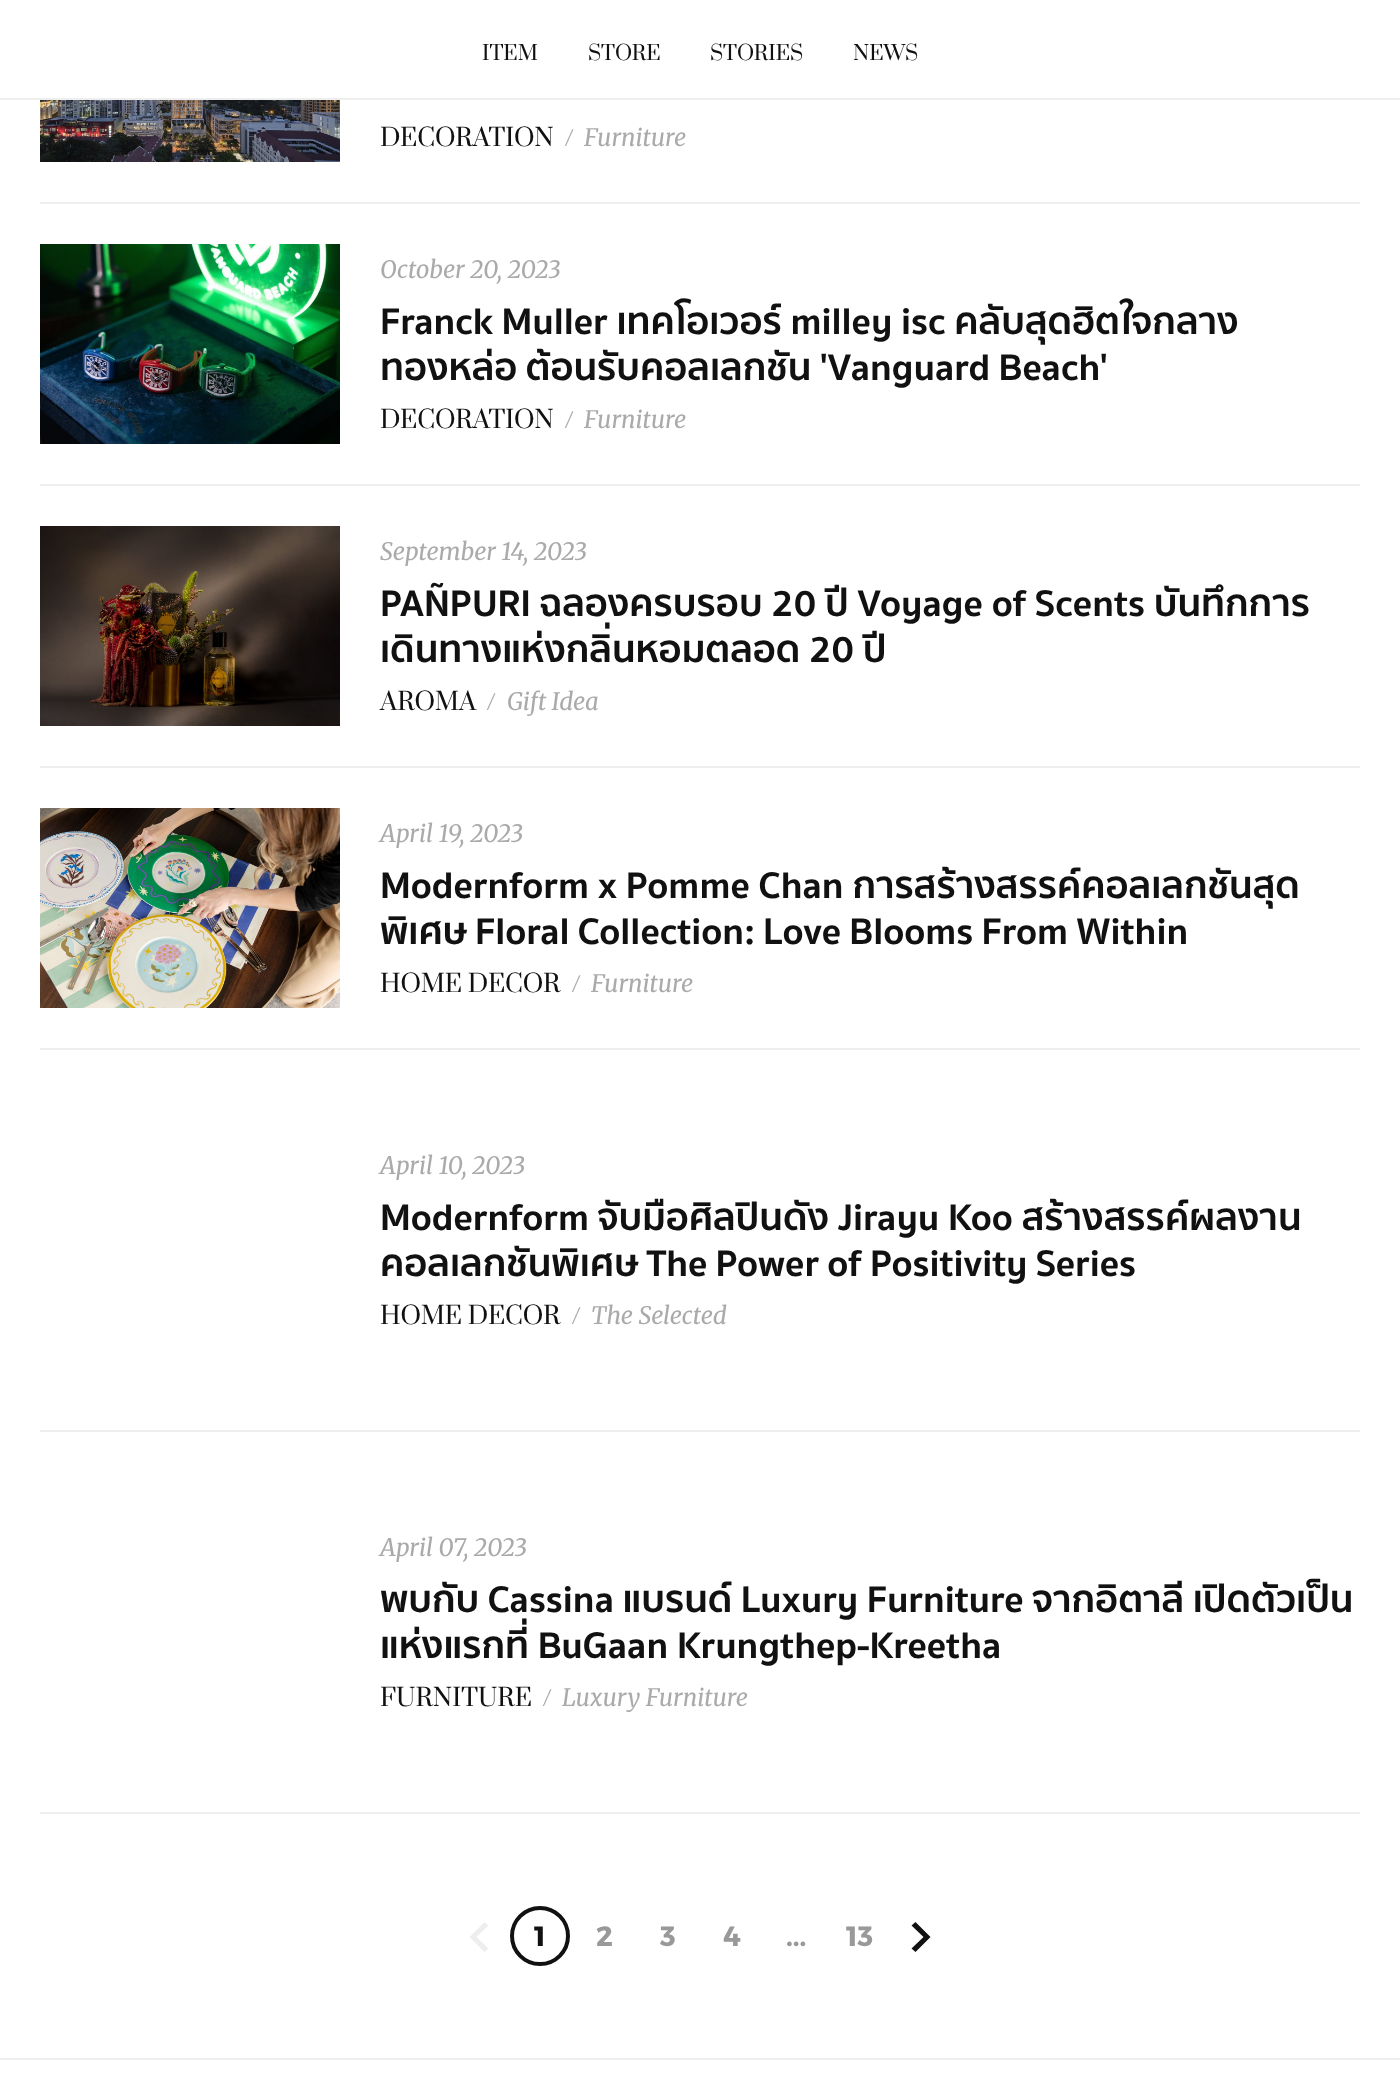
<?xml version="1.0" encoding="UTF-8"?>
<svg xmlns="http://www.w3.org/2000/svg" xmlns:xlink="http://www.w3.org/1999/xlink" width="1400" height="2100">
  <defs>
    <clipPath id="clip1"><rect x="380" y="572" width="980" height="100" /></clipPath>
    <clipPath id="clip2"><rect x="380" y="854" width="980" height="100" /></clipPath>
  </defs>
  <rect width="100%" height="100%" fill="#ffffff" />
  <rect y="98" width="1400" height="2" fill="#eeeeee" />
  <rect x="40" y="202" width="1320" height="2" fill="#eeeeee" />
  <image x="40" y="100" width="300" height="62" xlink:href="image1.png" />
  <rect x="40" y="484" width="1320" height="2" fill="#eeeeee" />
  <image x="40" y="244" width="300" height="200" xlink:href="image2.png" />
  <rect x="40" y="766" width="1320" height="2" fill="#eeeeee" />
  <image x="40" y="526" width="300" height="200" xlink:href="image3.png" />
  <rect x="40" y="1048" width="1320" height="2" fill="#eeeeee" />
  <image x="40" y="808" width="300" height="200" xlink:href="image4.png" />
  <rect x="40" y="1430" width="1320" height="2" fill="#eeeeee" />
  <rect x="40" y="1812" width="1320" height="2" fill="#eeeeee" />
  <path d="M 484.5 1952 l 4 -3.5 l -12 -11.5 l 12 -11.5 l -4 -3.5 l -15 15 z" fill="#eeeeee" />
  <circle cx="540" cy="1936" r="28" fill="none" stroke="#111111" stroke-width="4" />
  <path d="M 915.5 1922 l -4 3.5 l 12 11.5 l -12 11.5 l 4 3.5 l 15 -15 z" fill="#111111" />
  <rect y="2058" width="1400" height="2" fill="#eeeeee" />
  <text x="482" y="60" style="font-family: prata; font-size: 20px; fill: #111111">ITEM</text>
  <text x="588" y="60" style="font-family: prata; font-size: 20px; fill: #111111">STORE</text>
  <text x="710" y="60" style="font-family: prata; font-size: 20px; fill: #111111">STORIES</text>
  <text x="853" y="60" style="font-family: prata; font-size: 20px; fill: #111111">NEWS</text>
  <text x="380" y="146" style="font-family: prata; font-size: 24px; fill: #111111">DECORATION</text>
  <text x="564" y="146" style="font-family: prata; font-size: 24px; fill: #aaaaaa">/</text>
  <text x="584" y="146" style="font-family: Merriweather; font-size: 24px; font-style: italic; fill: #aaaaaa">Furniture</text>
  <text x="380" y="278" style="font-family: Merriweather; font-size: 24px; font-style: italic; fill: #aaaaaa">October 20, 2023</text>
  <text x="380" y="334" style="font-family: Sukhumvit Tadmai; font-size: 38px; font-weight: bold; fill: #111111">Franck Muller เทคโอเวอร์ milley isc คลับสุดฮิตใจกลาง</text>
  <text x="380" y="380" word-spacing="-0.5" style="font-family: Sukhumvit Tadmai; font-size: 38px; font-weight: bold; fill: #111111">ทองหล่อ ต้อนรับคอลเลกชัน 'Vanguard Beach'</text>
  <text x="380" y="428" style="font-family: prata; font-size: 24px; fill: #111111">DECORATION</text>
  <text x="564" y="428" style="font-family: prata; font-size: 24px; fill: #aaaaaa">/</text>
  <text x="584" y="428" style="font-family: Merriweather; font-size: 24px; font-style: italic; fill: #aaaaaa">Furniture</text>
  <text x="380" y="560" style="font-family: Merriweather; font-size: 24px; font-style: italic; fill: #aaaaaa">September 14, 2023</text>
  <text x="380" y="616" style="font-family: Sukhumvit Tadmai; font-size: 38px; font-weight: bold; fill: #111111">PAÑPURI ฉลองครบรอบ 20 ปี Voyage of Scents บันทึกการ</text>
  <g clip-path="url(#clip1)">
    <text x="380" y="662" style="font-family: Sukhumvit Tadmai; font-size: 38px; font-weight: bold; fill: #111111">เดินทางแห่งกลิ่นหอมตลอด 20 ปี</text>
  </g>
  <text x="380" y="710" style="font-family: prata; font-size: 24px; fill: #111111">AROMA</text>
  <text x="486" y="710" style="font-family: prata; font-size: 24px; fill: #aaaaaa">/</text>
  <text x="507" y="710" style="font-family: Merriweather; font-size: 24px; font-style: italic; fill: #aaaaaa">Gift Idea</text>
  <text x="380" y="842" style="font-family: Merriweather; font-size: 24px; font-style: italic; fill: #aaaaaa">April 19, 2023</text>
  <text x="380" y="898" style="font-family: Sukhumvit Tadmai; font-size: 38px; font-weight: bold; fill: #111111">Modernform x Pomme Chan การสร้างสรรค์คอลเลกชันสุด</text>
  <g clip-path="url(#clip2)">
    <text x="380" y="944" word-spacing="-0.5" style="font-family: Sukhumvit Tadmai; font-size: 38px; font-weight: bold; fill: #111111">พิเศษ Floral Collection: Love Blooms From Within</text>
  </g>
  <text x="380" y="992" style="font-family: prata; font-size: 24px; fill: #111111">HOME DECOR</text>
  <text x="571" y="992" style="font-family: prata; font-size: 24px; fill: #aaaaaa">/</text>
  <text x="591" y="992" style="font-family: Merriweather; font-size: 24px; font-style: italic; fill: #aaaaaa">Furniture</text>
  <text x="380" y="1174" style="font-family: Merriweather; font-size: 24px; font-style: italic; fill: #aaaaaa">April 10, 2023</text>
  <text x="380" y="1230" style="font-family: Sukhumvit Tadmai; font-size: 38px; font-weight: bold; fill: #111111">Modernform จับมือศิลปินดัง Jirayu Koo สร้างสรรค์ผลงาน</text>
  <text x="380" y="1276" word-spacing="-0.5" style="font-family: Sukhumvit Tadmai; font-size: 38px; font-weight: bold; fill: #111111">คอลเลกชันพิเศษ The Power of Positivity Series</text>
  <text x="380" y="1324" style="font-family: prata; font-size: 24px; fill: #111111">HOME DECOR</text>
  <text x="571" y="1324" style="font-family: prata; font-size: 24px; fill: #aaaaaa">/</text>
  <text x="591" y="1324" style="font-family: Merriweather; font-size: 24px; font-style: italic; fill: #aaaaaa">The Selected</text>
  <text x="380" y="1556" style="font-family: Merriweather; font-size: 24px; font-style: italic; fill: #aaaaaa">April 07, 2023</text>
  <text x="380" y="1612" word-spacing="-0.25" style="font-family: Sukhumvit Tadmai; font-size: 38px; font-weight: bold; fill: #111111">พบกับ Cassina แบรนด์ Luxury Furniture จากอิตาลี เปิดตัวเป็น</text>
  <text x="380" y="1658" style="font-family: Sukhumvit Tadmai; font-size: 38px; font-weight: bold; fill: #111111">แห่งแรกที่ BuGaan Krungthep-Kreetha</text>
  <text x="380" y="1706" style="font-family: prata; font-size: 24px; fill: #111111">FURNITURE</text>
  <text x="542" y="1706" style="font-family: prata; font-size: 24px; fill: #aaaaaa">/</text>
  <text x="562" y="1706" style="font-family: Merriweather; font-size: 24px; font-style: italic; fill: #aaaaaa">Luxury Furniture</text>
  <text x="534" y="1946" style="font-family: Montserrat; font-size: 28px; font-weight: bold; fill: #111111">1</text>
  <text x="596" y="1946" style="font-family: Montserrat; font-size: 28px; font-weight: bold; fill: #999999">2</text>
  <text x="660" y="1946" style="font-family: Montserrat; font-size: 28px; font-weight: bold; fill: #999999">3</text>
  <text x="723" y="1946" style="font-family: Montserrat; font-size: 28px; font-weight: bold; fill: #999999">4</text>
  <text x="786" y="1946" style="font-family: Montserrat; font-size: 28px; font-weight: bold; fill: #999999">...</text>
  <text x="846" y="1946" style="font-family: Montserrat; font-size: 28px; font-weight: bold; fill: #999999">13</text>
</svg>
